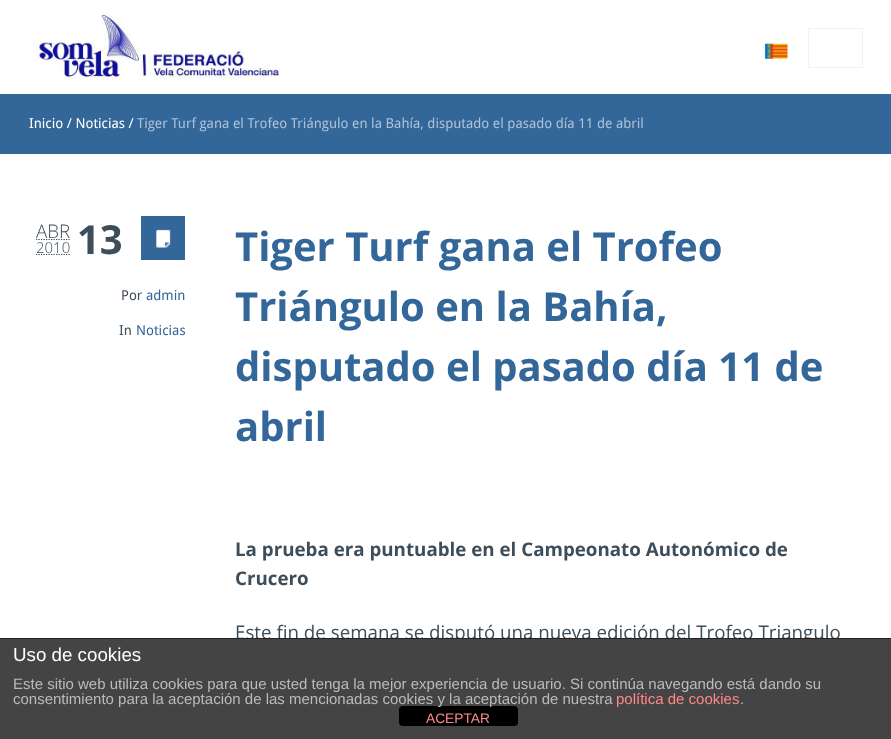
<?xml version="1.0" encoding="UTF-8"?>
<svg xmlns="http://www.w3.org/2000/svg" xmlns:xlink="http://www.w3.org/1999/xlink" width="891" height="739">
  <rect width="100%" height="100%" fill="#ffffff" />
  <image x="35" y="12" width="245" height="69" xlink:href="image1.png" />
  <image x="764" y="43" width="24" height="16" xlink:href="image2.png" />
  <rect x="808.5" y="28.5" width="54" height="39" fill="none" stroke="#f2f2f2" />
  <rect y="94" width="891" height="60" fill="#336699" />
  <path d="M 36 239.5 h 34" fill="none" stroke="#3d4d59" stroke-width="1.2" stroke-dasharray="1.25 1.25" />
  <path d="M 36 254.5 h 34" fill="none" stroke="#3d4d59" stroke-width="1.2" stroke-dasharray="1.25 1.25" />
  <rect x="141" y="216" width="44" height="44" fill="#336699" />
  <image x="156" y="229" width="15" height="19" xlink:href="image3.png" />
  <text x="29" y="128" style="font-family: Droid Sans; font-size: 13.75px; fill: #ffffff">Inicio / Noticias /</text>
  <text x="137" y="128" style="font-family: Droid Sans; font-size: 13.75px; fill: #adc2d6">Tiger Turf gana el Trofeo Triángulo en la Bahía, disputado el pasado día 11 de abril</text>
  <text x="36" y="238" style="font-family: Open Sans; font-size: 18.75px; font-weight: 300; fill: #3d4d59">ABR</text>
  <text x="77" y="254" style="font-family: Open Sans; font-size: 40px; font-weight: bold; fill: #3d4d59">13</text>
  <text x="36" y="253" style="font-family: Open Sans; font-size: 15px; font-weight: 300; fill: #3d4d59">2010</text>
  <text x="121" y="300" style="font-family: Droid Sans; font-size: 13.75px; fill: #3d4d59">Por</text>
  <text x="146" y="300" style="font-family: Droid Sans; font-size: 13.75px; fill: #336699">admin</text>
  <text x="119" y="335" style="font-family: Droid Sans; font-size: 13.75px; fill: #3d4d59">In</text>
  <text x="136" y="335" style="font-family: Droid Sans; font-size: 13.75px; fill: #336699">Noticias</text>
  <text x="235" y="261" style="font-family: Open Sans; font-size: 40px; font-weight: bold; fill: #336699">Tiger Turf gana el Trofeo</text>
  <text x="235" y="321" style="font-family: Open Sans; font-size: 40px; font-weight: bold; fill: #336699">Triángulo en la Bahía,</text>
  <text x="235" y="381" style="font-family: Open Sans; font-size: 40px; font-weight: bold; fill: #336699">disputado el pasado día 11 de</text>
  <text x="235" y="441" style="font-family: Open Sans; font-size: 40px; font-weight: bold; fill: #336699">abril</text>
  <text x="235" y="556" style="font-family: Open Sans; font-size: 18.75px; font-weight: bold; fill: #3d4d59">La prueba era puntuable en el Campeonato Autonómico de</text>
  <text x="235" y="585" style="font-family: Open Sans; font-size: 18.75px; font-weight: bold; fill: #3d4d59">Crucero</text>
  <text x="235" y="639" style="font-family: Open Sans; font-size: 18.75px; fill: #3d4d59">Este fin de semana se disputó una nueva edición del Trofeo Triangulo</text>
  <rect y="639" width="891" height="100" fill="#444444" />
  <rect y="638" width="891" height="1" fill="#222222" />
  <text x="13" y="661" style="font-family: Liberation Sans; font-size: 18.75px; fill: #ffffff">Uso de cookies</text>
  <text x="13" y="689" style="font-family: Liberation Sans; font-size: 15px; fill: #bbbbbb">Este sitio web utiliza cookies para que usted tenga la mejor experiencia de usuario. Si continúa navegando está dando su</text>
  <text x="616" y="704" style="font-family: Liberation Sans; font-size: 15px; fill: #ff8888">política de cookies</text>
  <text x="740" y="704" style="font-family: Liberation Sans; font-size: 15px; fill: #bbbbbb">.</text>
  <rect x="399" y="706" width="119" height="20" rx="4" fill="#000000" />
  <text x="13" y="704" style="font-family: Liberation Sans; font-size: 15px; fill: #bbbbbb">consentimiento para la aceptación de las mencionadas cookies y la aceptación de nuestra</text>
  <text x="426" y="723" style="font-family: Liberation Sans; font-size: 13.75px; fill: #ff8888">ACEPTAR</text>
</svg>
